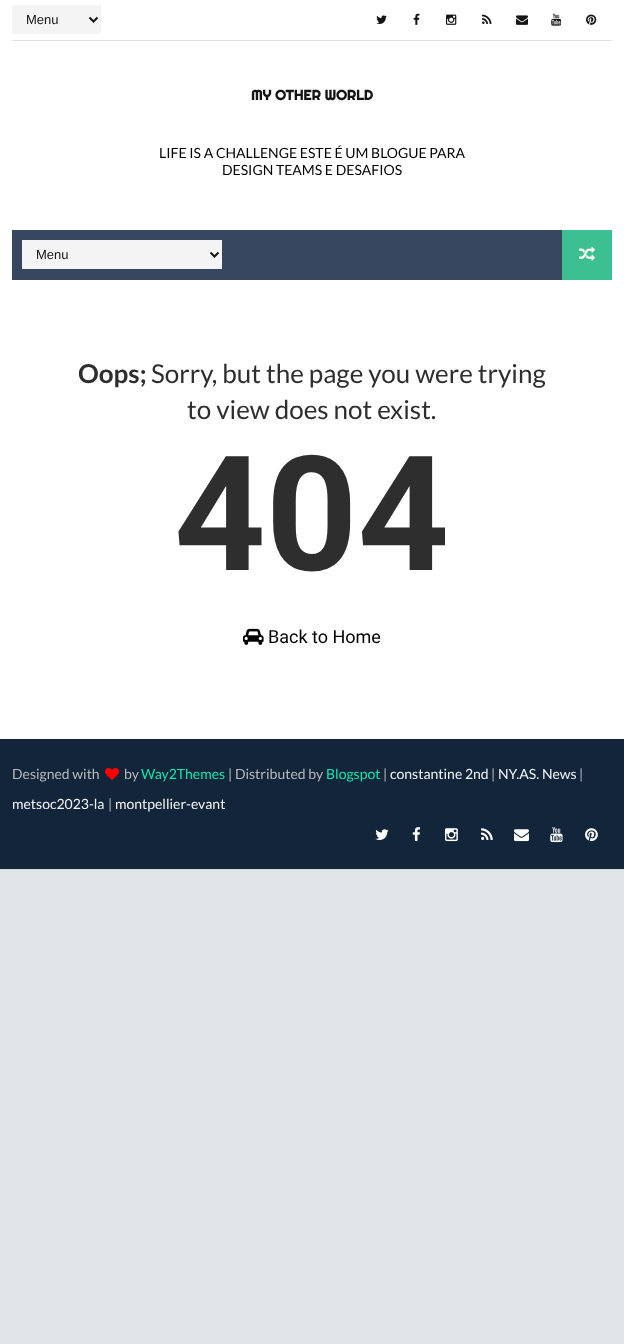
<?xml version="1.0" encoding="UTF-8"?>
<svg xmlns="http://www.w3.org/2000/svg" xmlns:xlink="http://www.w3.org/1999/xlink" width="624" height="1344">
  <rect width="100%" height="100%" fill="#e0e5e8" />
  <rect x="-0.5" y="-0.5" width="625" height="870" fill="none" stroke="#d5dadc" />
  <rect width="624" height="739" fill="#ffffff" />
  <rect x="12" y="40" width="600" height="1" fill="#e0e0e0" />
  <rect x="12" y="5" width="89" height="29" fill="#f4f4f4" />
  <path d="M 89.5 17.5 l 4 4 l 4 -4" fill="none" stroke="#151515" stroke-width="2" />
  <image x="376" y="15" width="11" height="9" xlink:href="image1.png" />
  <image x="413" y="13" width="7" height="12" xlink:href="image2.png" />
  <image x="446" y="14" width="11" height="11" xlink:href="image3.png" />
  <image x="482" y="14" width="10" height="10" xlink:href="image4.png" />
  <image x="516" y="15" width="12" height="10" xlink:href="image5.png" />
  <image x="551" y="13" width="11" height="13" xlink:href="image6.png" />
  <image x="586" y="14" width="11" height="11" xlink:href="image7.png" />
  <rect x="12" y="230" width="550" height="50" fill="#374760" />
  <rect x="22" y="240" width="200" height="29" fill="#f4f4f4" />
  <path d="M 210.5 252.5 l 4 4 l 4 -4" fill="none" stroke="#151515" stroke-width="2" />
  <rect x="562" y="230" width="50" height="50" fill="#3cc091" />
  <image x="579" y="246" width="16" height="15" xlink:href="image8.png" />
  <image x="243" y="628" width="21" height="17" xlink:href="image9.png" />
  <rect y="739" width="624" height="130" fill="#13253a" />
  <image x="105" y="768" width="14" height="12" xlink:href="image10.png" />
  <image x="375" y="829" width="14" height="11" xlink:href="image11.png" />
  <image x="412" y="827" width="9" height="15" xlink:href="image12.png" />
  <image x="445" y="828" width="13" height="14" xlink:href="image13.png" />
  <image x="481" y="828" width="12" height="12" xlink:href="image14.png" />
  <image x="514" y="829" width="15" height="13" xlink:href="image15.png" />
  <image x="550" y="827" width="13" height="16" xlink:href="image16.png" />
  <image x="585" y="828" width="13" height="14" xlink:href="image17.png" />
  <text x="26" y="24" style="font-family: Liberation Sans; font-size: 13px; fill: #151515">Menu</text>
  <text x="251" y="100" style="font-family: Righteous; font-size: 14px; font-weight: bold; fill: #151515">MY OTHER WORLD</text>
  <text x="159" y="158" style="font-family: Lato; font-size: 14px; fill: #000000">LIFE IS A CHALLENGE ESTE É UM BLOGUE PARA</text>
  <text x="222" y="175" style="font-family: Lato; font-size: 14px; fill: #000000">DESIGN TEAMS E DESAFIOS</text>
  <text x="36" y="259" style="font-family: Liberation Sans; font-size: 13px; fill: #151515">Menu</text>
  <text x="78" y="383" style="font-family: Lato; font-size: 26px; font-weight: bold; fill: #2e2e2e">Oops;</text>
  <text x="151" y="383" style="font-family: Lato; font-size: 26px; fill: #2e2e2e">Sorry, but the page you were trying</text>
  <text x="187" y="419" style="font-family: Lato; font-size: 26px; fill: #2e2e2e">to view does not exist.</text>
  <text x="174" y="570" style="font-family: Roboto; font-size: 160px; font-weight: bold; fill: #2e2e2e">404</text>
  <text x="268" y="643" style="font-family: Roboto; font-size: 18px; fill: #000000">Back to Home</text>
  <text x="12" y="779" style="font-family: Lato; font-size: 14px; fill: #bababa">Designed with</text>
  <text x="124" y="779" style="font-family: Lato; font-size: 14px; fill: #bababa">by</text>
  <text x="141" y="779" style="font-family: Lato; font-size: 14px; fill: #0be6af">Way2Themes</text>
  <text x="228" y="779" style="font-family: Lato; font-size: 14px; fill: #bababa">| Distributed by</text>
  <text x="326" y="779" style="font-family: Lato; font-size: 14px; fill: #0be6af">Blogspot</text>
  <text x="383" y="779" style="font-family: Lato; font-size: 14px; fill: #bababa">|</text>
  <text x="390" y="779" style="font-family: Lato; font-size: 14px; fill: #f4f4f4">constantine 2nd</text>
  <text x="491" y="779" style="font-family: Lato; font-size: 14px; fill: #bababa">|</text>
  <text x="498" y="779" style="font-family: Lato; font-size: 14px; fill: #f4f4f4">NY.AS. News</text>
  <text x="579" y="779" style="font-family: Lato; font-size: 14px; fill: #bababa">|</text>
  <text x="12" y="809" style="font-family: Lato; font-size: 14px; fill: #f4f4f4">metsoc2023-la</text>
  <text x="108" y="809" style="font-family: Lato; font-size: 14px; fill: #bababa">|</text>
  <text x="115" y="809" style="font-family: Lato; font-size: 14px; fill: #f4f4f4">montpellier-evant</text>
</svg>
